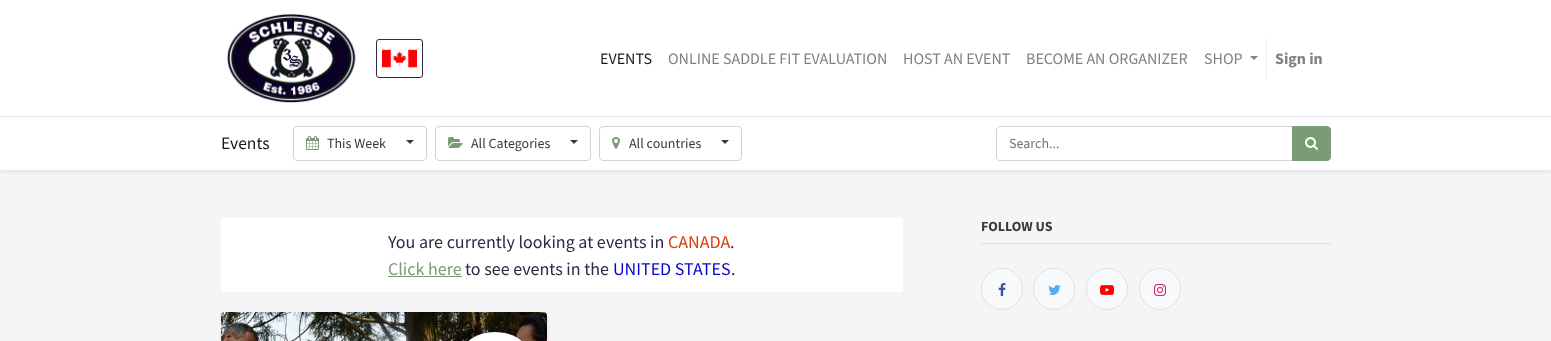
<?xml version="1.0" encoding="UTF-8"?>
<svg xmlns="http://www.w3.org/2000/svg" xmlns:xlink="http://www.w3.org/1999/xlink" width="1551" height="341">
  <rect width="100%" height="100%" fill="#f5f4f7" />
  <rect y="118" width="1551" height="54" fill="#000000" fill-opacity="0.07" filter="blur(2px)" />
  <rect width="1551" height="116" fill="#ffffff" />
  <image x="226" y="13" width="130" height="90" xlink:href="image1.png" />
  <rect x="376.5" y="39.5" width="46" height="38" rx="2.5" fill="none" stroke="#2f2943" />
  <image x="382" y="49" width="35" height="19" xlink:href="image2.png" />
  <path d="M 1250 56 h 8 l -4 4 z" fill="#808080" />
  <rect x="1266" y="38" width="1" height="40" fill="#e9ecef" />
  <rect y="117" width="1551" height="53" fill="#ffffff" />
  <rect y="116" width="1551" height="1" fill="#dee2e6" />
  <rect x="293.5" y="126.5" width="133" height="34" rx="3.5" fill="none" stroke="#ced4da" />
  <image x="306" y="136" width="13" height="14" xlink:href="image3.png" />
  <path d="M 406 140 h 8 l -4 4 z" fill="#3a3a3a" />
  <rect x="435.5" y="126.5" width="155" height="34" rx="3.5" fill="none" stroke="#ced4da" />
  <image x="448" y="137" width="15" height="11" xlink:href="image4.png" />
  <path d="M 570 140 h 8 l -4 4 z" fill="#3a3a3a" />
  <rect x="599.5" y="126.5" width="142" height="34" rx="3.5" fill="none" stroke="#ced4da" />
  <image x="612" y="137" width="8" height="12" xlink:href="image5.png" />
  <path d="M 721 140 h 8 l -4 4 z" fill="#3a3a3a" />
  <path d="M 1000 126.5 h 292.5 v 34 h -292.5 c -2 0 -3.5 -1.5 -3.5 -3.5 v -27 c 0 -2 1.5 -3.5 3.5 -3.5 z" fill="none" stroke="#ced4da" />
  <path d="M 1292.5 126.5 h 34.5 c 2 0 3.5 1.5 3.5 3.5 v 27 c 0 2 -1.5 3.5 -3.5 3.5 h -34.5 z" fill="#7a9b76" stroke="#7a9b76" />
  <image x="1305" y="137" width="13" height="13" xlink:href="image6.png" />
  <rect x="981" y="243" width="350" height="1" fill="#dee2e6" />
  <circle cx="1002" cy="289" r="20.5" fill="#f8f9fa" stroke="#dee2e6" />
  <image x="998" y="283" width="8" height="13" xlink:href="image7.png" />
  <circle cx="1054" cy="289" r="20.5" fill="#f8f9fa" stroke="#dee2e6" />
  <image x="1048" y="285" width="13" height="10" xlink:href="image8.png" />
  <circle cx="1107" cy="289" r="20.5" fill="#f8f9fa" stroke="#dee2e6" />
  <image x="1100" y="285" width="14" height="10" xlink:href="image9.png" />
  <circle cx="1160" cy="289" r="20.5" fill="#f8f9fa" stroke="#dee2e6" />
  <image x="1154" y="284" width="12" height="12" xlink:href="image10.png" />
  <rect x="221" y="218" width="682" height="74" fill="#ffffff" />
  <rect x="388" y="276" width="74" height="1" fill="#7a9b76" />
  <rect x="221" y="314" width="326" height="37" rx="4" fill="#000000" fill-opacity="0.07" filter="blur(2px)" />
  <image x="221" y="312" width="326" height="29" xlink:href="image11.png" />
  <rect x="463" y="332" width="64" height="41" rx="32" fill="#ffffff" />
  <text x="600" y="64" style="font-family: Source Sans Pro; font-size: 16px; fill: #1a1a1a">EVENTS</text>
  <text x="668" y="64" style="font-family: Source Sans Pro; font-size: 16px; fill: #808080">ONLINE SADDLE FIT EVALUATION</text>
  <text x="903" y="64" style="font-family: Source Sans Pro; font-size: 16px; fill: #808080">HOST AN EVENT</text>
  <text x="1026" y="64" style="font-family: Source Sans Pro; font-size: 16px; fill: #808080">BECOME AN ORGANIZER</text>
  <text x="1204" y="64" style="font-family: Source Sans Pro; font-size: 16px; fill: #808080">SHOP</text>
  <text x="1275" y="64" style="font-family: Source Sans Pro; font-size: 16px; font-weight: bold; fill: #808080">Sign in</text>
  <text x="221" y="149" style="font-family: Source Sans Pro; font-size: 17.5px; fill: #1a1a1a">Events</text>
  <text x="327" y="148" style="font-family: Source Sans Pro; font-size: 14px; fill: #3a3a3a">This Week</text>
  <text x="471" y="148" style="font-family: Source Sans Pro; font-size: 14px; fill: #3a3a3a">All Categories</text>
  <text x="629" y="148" style="font-family: Source Sans Pro; font-size: 14px; fill: #3a3a3a">All countries</text>
  <text x="1009" y="148" style="font-family: Source Sans Pro; font-size: 14px; fill: #6c757d">Search...</text>
  <text x="981" y="231" style="font-family: Source Sans Pro; font-size: 14px; font-weight: bold; fill: #3a3a3a">FOLLOW US</text>
  <text x="388" y="248" style="font-family: Source Sans Pro; font-size: 18px; fill: #2f2943">You are currently looking at events in</text>
  <text x="668" y="248" style="font-family: Source Sans Pro; font-size: 18px; fill: #dc3a09">CANADA</text>
  <text x="730" y="248" style="font-family: Source Sans Pro; font-size: 18px; fill: #2f2943">.</text>
  <text x="388" y="275" style="font-family: Source Sans Pro; font-size: 18px; fill: #7a9b76">Click here</text>
  <text x="465" y="275" style="font-family: Source Sans Pro; font-size: 18px; fill: #2f2943">to see events in the</text>
  <text x="613" y="275" style="font-family: Source Sans Pro; font-size: 18px; fill: #0603cd">UNITED STATES</text>
  <text x="731" y="275" style="font-family: Source Sans Pro; font-size: 18px; fill: #2f2943">.</text>
</svg>
